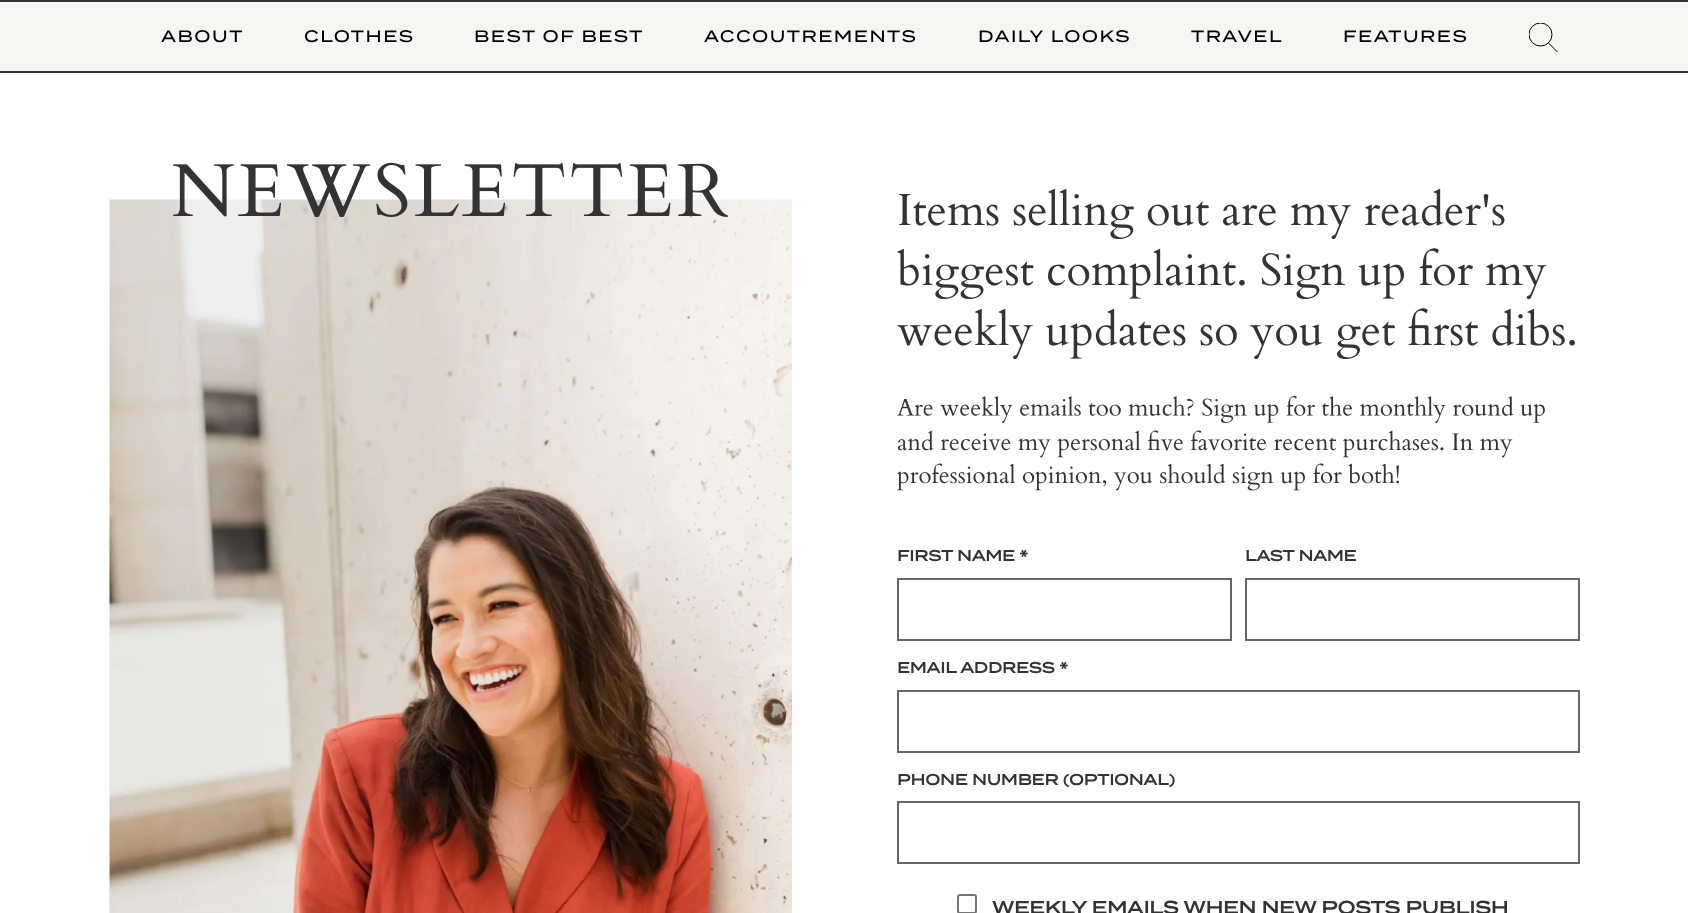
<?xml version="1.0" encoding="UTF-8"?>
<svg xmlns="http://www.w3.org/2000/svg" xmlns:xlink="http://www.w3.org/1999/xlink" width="1688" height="913">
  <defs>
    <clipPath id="clip1"><rect x="1529" y="23" width="28" height="30" /></clipPath>
  </defs>
  <rect width="100%" height="100%" fill="#ffffff" />
  <rect y="2" width="1688" height="69" fill="#f7f5f2" />
  <rect width="1688" height="2" fill="#333333" />
  <rect y="71" width="1688" height="2" fill="#333333" />
  <g clip-path="url(#clip1)">
    <circle cx="1540.5" cy="34.5" r="11.5" fill="none" stroke="#000000" />
  </g>
  <path d="M 1548.5 43 l 9 9" fill="none" stroke="#000000" />
  <image x="109" y="199" width="683" height="714" xlink:href="image2.png" />
  <image x="173" y="162" width="556" height="55" xlink:href="image1.png" />
  <image x="899" y="188" width="606" height="52" xlink:href="image3.png" />
  <image x="897" y="248" width="650" height="52" xlink:href="image4.png" />
  <image x="897" y="308" width="678" height="52" xlink:href="image5.png" />
  <image x="897" y="395" width="648" height="28" xlink:href="image6.png" />
  <image x="897" y="430" width="616" height="28" xlink:href="image7.png" />
  <image x="897" y="463" width="502" height="28" xlink:href="image8.png" />
  <rect x="898" y="579" width="333" height="61" fill="none" stroke="#666666" stroke-width="2" />
  <rect x="1246" y="579" width="333" height="61" fill="none" stroke="#666666" stroke-width="2" />
  <rect x="898" y="691" width="681" height="61" fill="none" stroke="#666666" stroke-width="2" />
  <rect x="898" y="802" width="681" height="61" fill="none" stroke="#666666" stroke-width="2" />
  <rect x="958" y="895" width="18" height="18" rx="2" fill="none" stroke="#767676" stroke-width="2" />
  <text x="161" y="42" style="font-family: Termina; font-size: 16.5px; font-weight: 500; letter-spacing: 1.5px; fill: #000000">ABOUT</text>
  <text x="304" y="42" style="font-family: Termina; font-size: 16.5px; font-weight: 500; letter-spacing: 1.5px; fill: #000000">CLOTHES</text>
  <text x="474" y="42" style="font-family: Termina; font-size: 16.5px; font-weight: 500; letter-spacing: 1.5px; fill: #000000">BEST OF BEST</text>
  <text x="704" y="42" style="font-family: Termina; font-size: 16.5px; font-weight: 500; letter-spacing: 1.5px; fill: #000000">ACCOUTREMENTS</text>
  <text x="978" y="42" style="font-family: Termina; font-size: 16.5px; font-weight: 500; letter-spacing: 1.5px; fill: #000000">DAILY LOOKS</text>
  <text x="1191" y="42" style="font-family: Termina; font-size: 16.5px; font-weight: 500; letter-spacing: 1.5px; fill: #000000">TRAVEL</text>
  <text x="1343" y="42" style="font-family: Termina; font-size: 16.5px; font-weight: 500; letter-spacing: 1.5px; fill: #000000">FEATURES</text>
  <text x="897" y="561" style="font-family: Termina; font-size: 15px; font-weight: bold; fill: #333333">FIRST NAME *</text>
  <text x="1245" y="561" style="font-family: Termina; font-size: 15px; font-weight: bold; fill: #333333">LAST NAME</text>
  <text x="897" y="673" style="font-family: Termina; font-size: 15px; font-weight: bold; fill: #333333">EMAIL ADDRESS *</text>
  <text x="897" y="785" style="font-family: Termina; font-size: 15px; font-weight: bold; fill: #333333">PHONE NUMBER (OPTIONAL)</text>
  <text x="992" y="914" style="font-family: Termina; font-size: 18px; font-weight: bold; fill: #333333">WEEKLY EMAILS WHEN NEW POSTS PUBLISH</text>
</svg>
